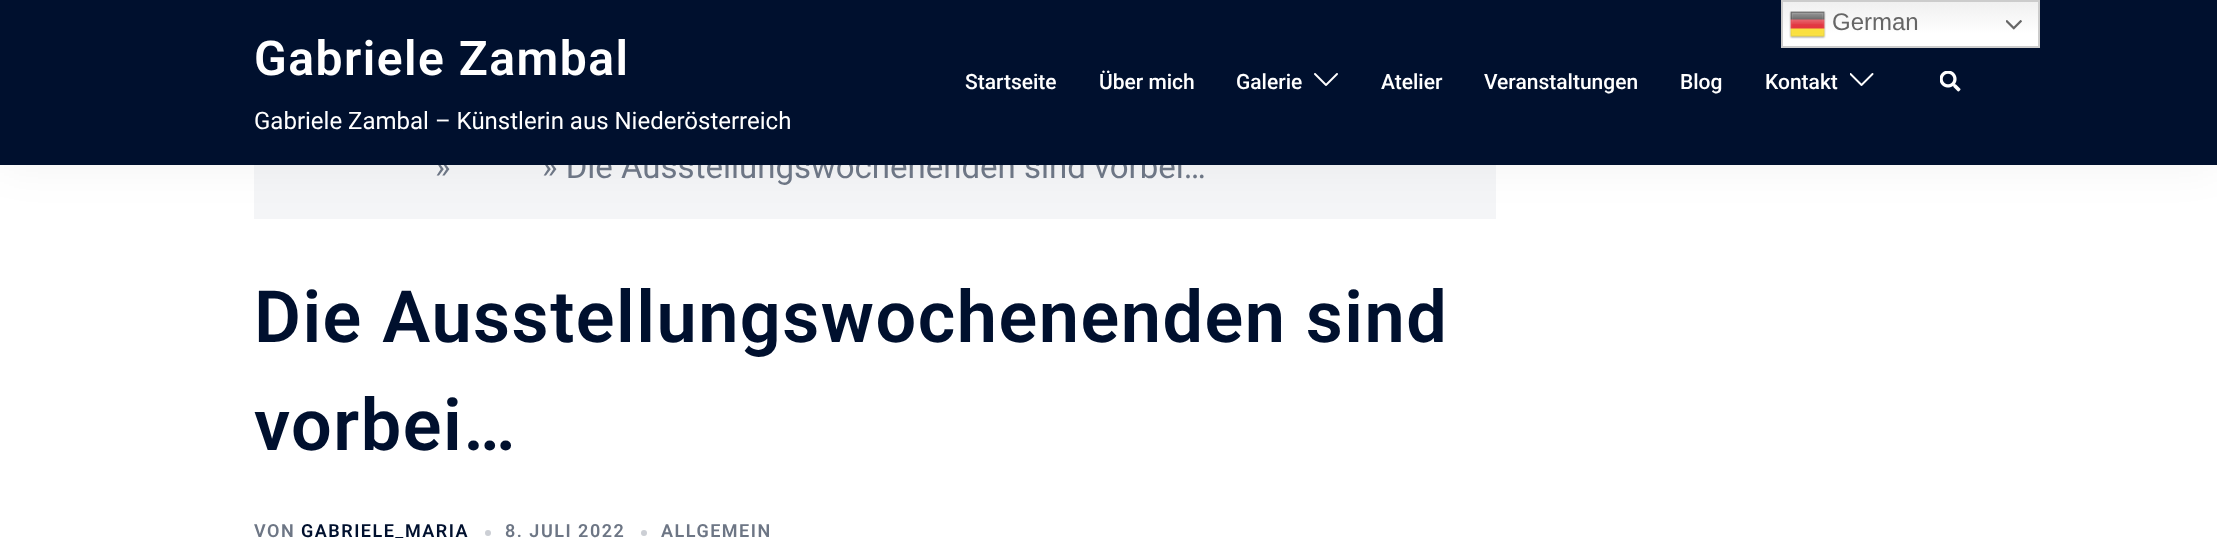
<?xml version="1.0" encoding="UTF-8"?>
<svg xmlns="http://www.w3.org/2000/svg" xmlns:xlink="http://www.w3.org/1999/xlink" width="2217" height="538">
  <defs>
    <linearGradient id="g1" gradientUnits="userSpaceOnUse" x1="1910" y1="0" x2="1910" y2="48"><stop offset="0" stop-color="#efefef" /><stop offset="0.7" stop-color="#ffffff" /></linearGradient>
  </defs>
  <rect width="100%" height="100%" fill="#ffffff" />
  <rect x="254" y="165" width="1242" height="54" fill="#f4f5f7" />
  <rect width="2217" height="165" fill="#000000" fill-opacity="0.05" filter="blur(22.5px)" />
  <circle cx="488" cy="533" r="3" fill="#cccfd5" />
  <circle cx="644" cy="533" r="3" fill="#cccfd5" />
  <text x="435" y="178" style="font-family: Roboto; font-size: 33px; fill: #6d7685">»</text>
  <text x="542" y="178" style="font-family: Roboto; font-size: 33px; fill: #6d7685">» Die Ausstellungswochenenden sind vorbei…</text>
  <rect width="2217" height="165" fill="#00102e" />
  <rect x="1783" y="2" width="255" height="44" fill="url(#g1)" />
  <rect x="1782" y="1" width="257" height="46" fill="none" stroke="#cccccc" stroke-width="2" />
  <image x="2006" y="20" width="16" height="10" xlink:href="image2.png" />
  <image x="1789" y="11" width="37" height="28" xlink:href="image1.png" />
  <text x="1832" y="30" style="font-family: Liberation Sans; font-size: 24px; fill: #666666">German</text>
  <image x="1940" y="71" width="21" height="21" xlink:href="image5.png" />
  <image x="1850" y="73" width="24" height="13" xlink:href="image4.png" />
  <text x="1765" y="89" style="font-family: Roboto; font-size: 21px; font-weight: 500; fill: #ffffff">Kontakt</text>
  <text x="1680" y="89" style="font-family: Roboto; font-size: 21px; font-weight: 500; fill: #ffffff">Blog</text>
  <text x="1484" y="89" style="font-family: Roboto; font-size: 21px; font-weight: 500; fill: #ffffff">Veranstaltungen</text>
  <text x="1381" y="89" style="font-family: Roboto; font-size: 21px; font-weight: 500; fill: #ffffff">Atelier</text>
  <image x="1314" y="73" width="24" height="13" xlink:href="image3.png" />
  <text x="1236" y="89" style="font-family: Roboto; font-size: 21px; font-weight: 500; fill: #ffffff">Galerie</text>
  <text x="1099" y="89" style="font-family: Roboto; font-size: 21px; font-weight: 500; fill: #ffffff">Über mich</text>
  <text x="965" y="89" style="font-family: Roboto; font-size: 21px; font-weight: 500; fill: #ffffff">Startseite</text>
  <text x="254" y="129" style="font-family: Roboto; font-size: 24px; fill: #ffffff">Gabriele Zambal – Künstlerin aus Niederösterreich</text>
  <text x="254" y="75" style="font-family: Roboto; font-size: 48px; font-weight: 600; letter-spacing: 1.5px; fill: #ffffff">Gabriele Zambal</text>
  <text x="254" y="342" style="font-family: Roboto; font-size: 72px; font-weight: 600; letter-spacing: 1.5px; fill: #00102e">Die Ausstellungswochenenden sind</text>
  <text x="254" y="450" style="font-family: Roboto; font-size: 72px; font-weight: 600; letter-spacing: 1.5px; fill: #00102e">vorbei…</text>
  <text x="254" y="537" style="font-family: Roboto; font-size: 18px; font-weight: 600; letter-spacing: 1.5px; fill: #6d7685">VON</text>
  <text x="301" y="537" style="font-family: Roboto; font-size: 18px; font-weight: 600; letter-spacing: 1.5px; fill: #00102e">GABRIELE_MARIA</text>
  <text x="505" y="537" style="font-family: Roboto; font-size: 18px; font-weight: 600; letter-spacing: 1.5px; fill: #6d7685">8. JULI 2022</text>
  <text x="661" y="537" style="font-family: Roboto; font-size: 18px; font-weight: 600; letter-spacing: 1.5px; fill: #6d7685">ALLGEMEIN</text>
</svg>
